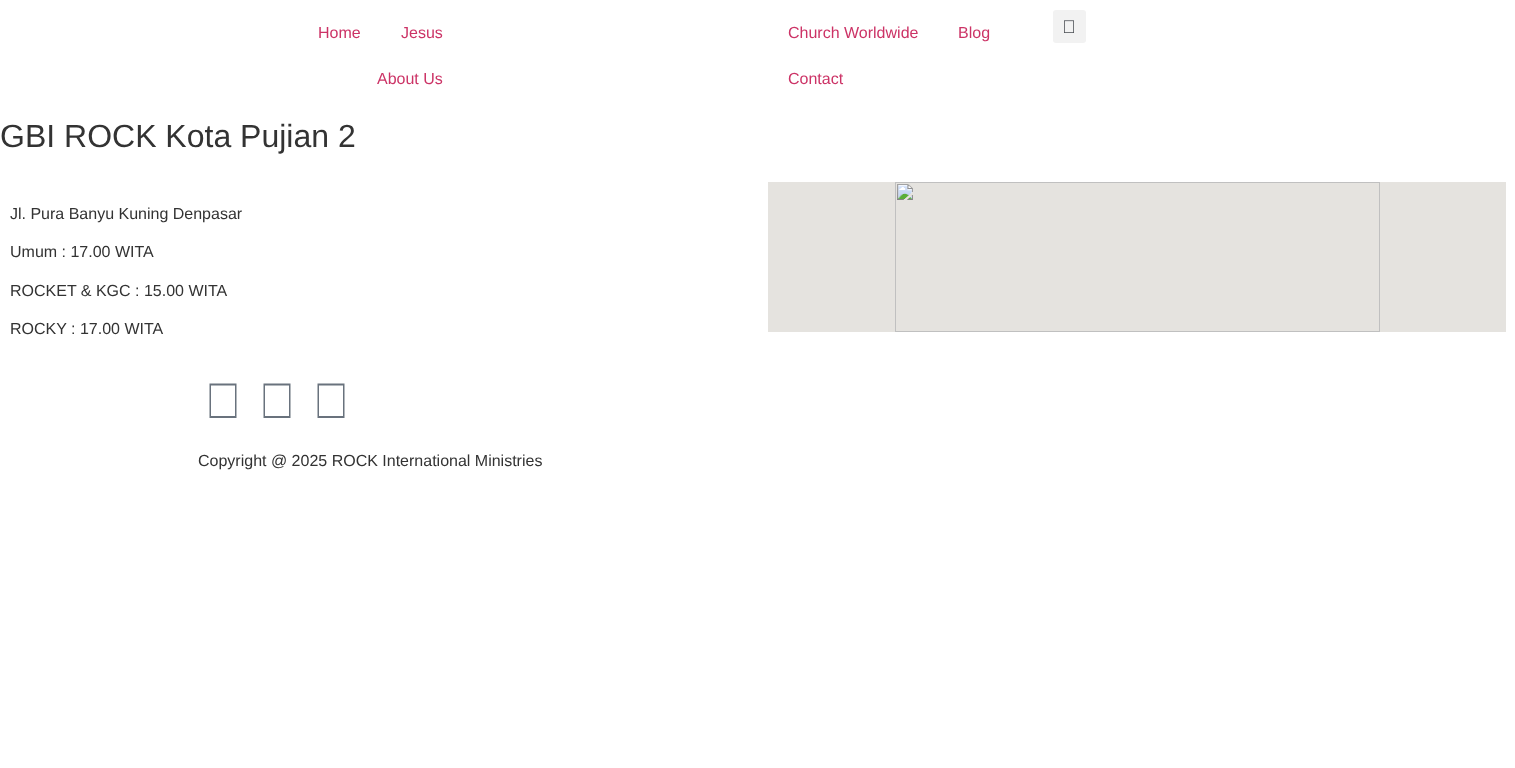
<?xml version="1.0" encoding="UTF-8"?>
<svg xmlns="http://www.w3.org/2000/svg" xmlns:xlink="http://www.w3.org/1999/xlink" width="1515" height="768">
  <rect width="100%" height="100%" fill="#ffffff" />
  <rect x="1053" y="10" width="33" height="33" rx="3" fill="#f2f2f2" />
  <image x="1064" y="20" width="10" height="13" xlink:href="image1.png" />
  <image x="768" y="182" width="738" height="150" xlink:href="image2.png" />
  <path d="M 209.5 383.5 h 27 v 34.5 h -27 z m 1.5 2 v 30.5 h 24 v -30.5 z" fill="#69727d" />
  <path d="M 263.5 383.5 h 27 v 34.5 h -27 z m 1.5 2 v 30.5 h 24 v -30.5 z" fill="#69727d" />
  <path d="M 317.5 383.5 h 27 v 34.5 h -27 z m 1.5 2 v 30.5 h 24 v -30.5 z" fill="#69727d" />
  <text x="318" y="38" style="font-family: Liberation Sans; font-size: 16px; fill: #cc3366">Home</text>
  <text x="401" y="38" style="font-family: Liberation Sans; font-size: 16px; fill: #cc3366">Jesus</text>
  <text x="377" y="84" style="font-family: Liberation Sans; font-size: 16px; fill: #cc3366">About Us</text>
  <text x="788" y="38" style="font-family: Liberation Sans; font-size: 16px; fill: #cc3366">Church Worldwide</text>
  <text x="958" y="38" style="font-family: Liberation Sans; font-size: 16px; fill: #cc3366">Blog</text>
  <text x="788" y="84" style="font-family: Liberation Sans; font-size: 16px; fill: #cc3366">Contact</text>
  <text x="0" y="147" style="font-family: Liberation Sans; font-size: 32px; fill: #333333">GBI ROCK Kota Pujian 2</text>
  <text x="10" y="219" style="font-family: Liberation Sans; font-size: 16px; fill: #333333">Jl. Pura Banyu Kuning Denpasar</text>
  <text x="10" y="257" style="font-family: Liberation Sans; font-size: 16px; fill: #333333">Umum : 17.00 WITA</text>
  <text x="10" y="296" style="font-family: Liberation Sans; font-size: 16px; fill: #333333">ROCKET &amp; KGC : 15.00 WITA</text>
  <text x="10" y="334" style="font-family: Liberation Sans; font-size: 16px; fill: #333333">ROCKY : 17.00 WITA</text>
  <text x="198" y="466" style="font-family: Liberation Sans; font-size: 16px; fill: #333333">Copyright @ 2025 ROCK International Ministries</text>
</svg>
